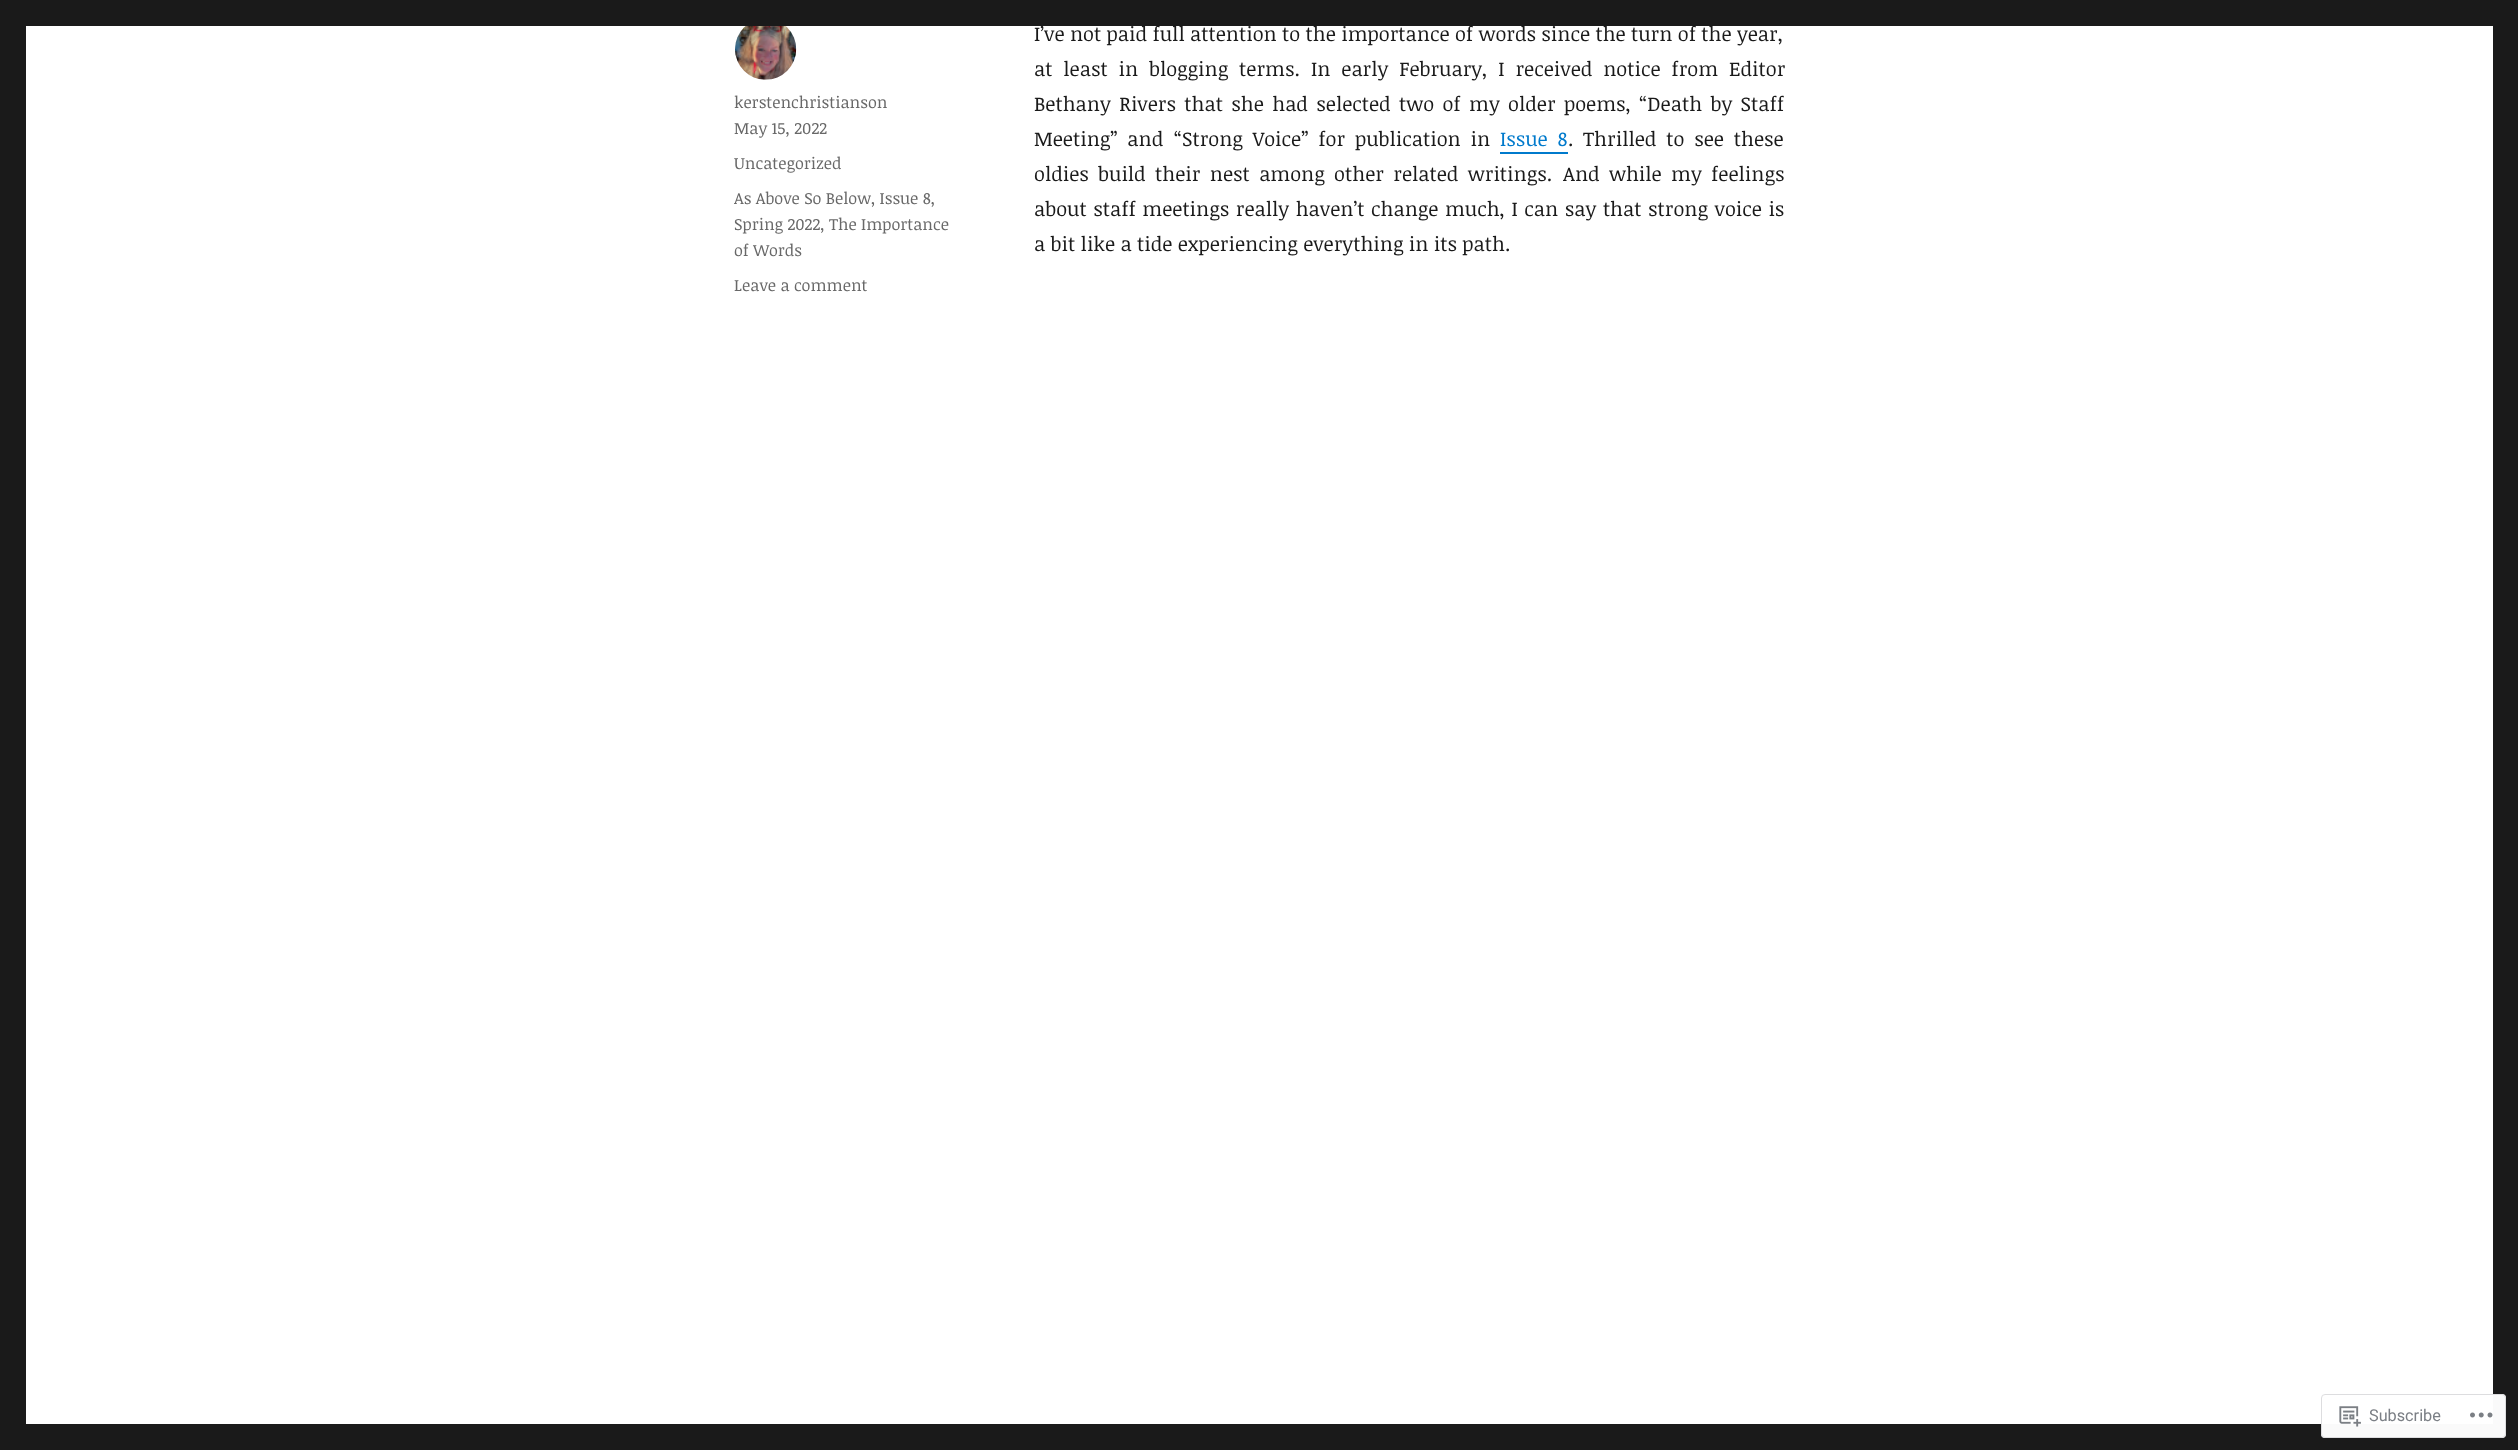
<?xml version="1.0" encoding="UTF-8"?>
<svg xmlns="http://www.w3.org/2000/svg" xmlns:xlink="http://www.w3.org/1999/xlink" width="2518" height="1450">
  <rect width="100%" height="100%" fill="#1a1a1a" />
  <rect x="26" y="26" width="2467" height="1398" fill="#ffffff" />
  <image x="735" y="26" width="62" height="54" xlink:href="image1.png" />
  <path d="M 1500 152 v 2 h 68 v -28 v 26 z" fill="#007acc" />
  <rect x="2321" y="1394" width="185" height="44" rx="4" fill="#ffffff" fill-opacity="0.98" />
  <rect x="2321.5" y="1394.5" width="184" height="43" rx="3.5" fill="none" stroke="#dcdcde" stroke-opacity="0.98" />
  <image x="2339" y="1406" width="22" height="21" xlink:href="image2.png" />
  <image x="2470" y="1412" width="23" height="6" xlink:href="image3.png" />
  <text x="734" y="108" style="font-family: Noticia Text; font-size: 16.25px; fill: #686868">kerstenchristianson</text>
  <text x="734" y="134" style="font-family: Noticia Text; font-size: 16.25px; fill: #686868">May 15, 2022</text>
  <text x="734" y="169" style="font-family: Noticia Text; font-size: 16.25px; fill: #686868">Uncategorized</text>
  <text x="734" y="204" style="font-family: Noticia Text; font-size: 16.25px; fill: #686868">As Above So Below, Issue 8,</text>
  <text x="734" y="230" style="font-family: Noticia Text; font-size: 16.25px; fill: #686868">Spring 2022, The Importance</text>
  <text x="734" y="256" style="font-family: Noticia Text; font-size: 16.25px; fill: #686868">of Words</text>
  <text x="734" y="291" style="font-family: Noticia Text; font-size: 16.25px; fill: #686868">Leave a comment</text>
  <text x="1034" y="41" style="font-family: Noticia Text; font-size: 20px; fill: #1a1a1a">I’ve not paid full attention to the importance of words since the turn of the year,</text>
  <text x="1034" y="76" word-spacing="5.5" style="font-family: Noticia Text; font-size: 20px; fill: #1a1a1a">at least in blogging terms.</text>
  <text x="1311" y="76" word-spacing="5.5" style="font-family: Noticia Text; font-size: 20px; fill: #1a1a1a">In early February, I received notice from Editor</text>
  <text x="1034" y="111" word-spacing="3" style="font-family: Noticia Text; font-size: 20px; fill: #1a1a1a">Bethany Rivers that she had selected two of my older poems, “Death by Staff</text>
  <text x="1034" y="146" word-spacing="4.5" style="font-family: Noticia Text; font-size: 20px; fill: #1a1a1a">Meeting” and</text>
  <text x="1174" y="146" word-spacing="4.5" style="font-family: Noticia Text; font-size: 20px; fill: #1a1a1a">“Strong Voice” for publication in</text>
  <text x="1500" y="146" word-spacing="4.5" style="font-family: Noticia Text; font-size: 20px; fill: #007acc">Issue 8</text>
  <text x="1568" y="146" style="font-family: Noticia Text; font-size: 20px; fill: #1a1a1a">.</text>
  <text x="1583" y="146" word-spacing="4.5" style="font-family: Noticia Text; font-size: 20px; fill: #1a1a1a">Thrilled to see these</text>
  <text x="1034" y="181" word-spacing="4" style="font-family: Noticia Text; font-size: 20px; fill: #1a1a1a">oldies build their nest among other related writings.</text>
  <text x="1563" y="181" word-spacing="4" style="font-family: Noticia Text; font-size: 20px; fill: #1a1a1a">And while my feelings</text>
  <text x="1034" y="216" word-spacing="1.2" style="font-family: Noticia Text; font-size: 20px; fill: #1a1a1a">about staff meetings really haven’t change much, I can say that strong voice is</text>
  <text x="1034" y="251" style="font-family: Noticia Text; font-size: 20px; fill: #1a1a1a">a bit like a tide experiencing everything in its path.</text>
  <text x="2369" y="1421" style="font-family: Roboto; font-size: 16.25px; fill: #7b7f85">Subscribe</text>
</svg>
